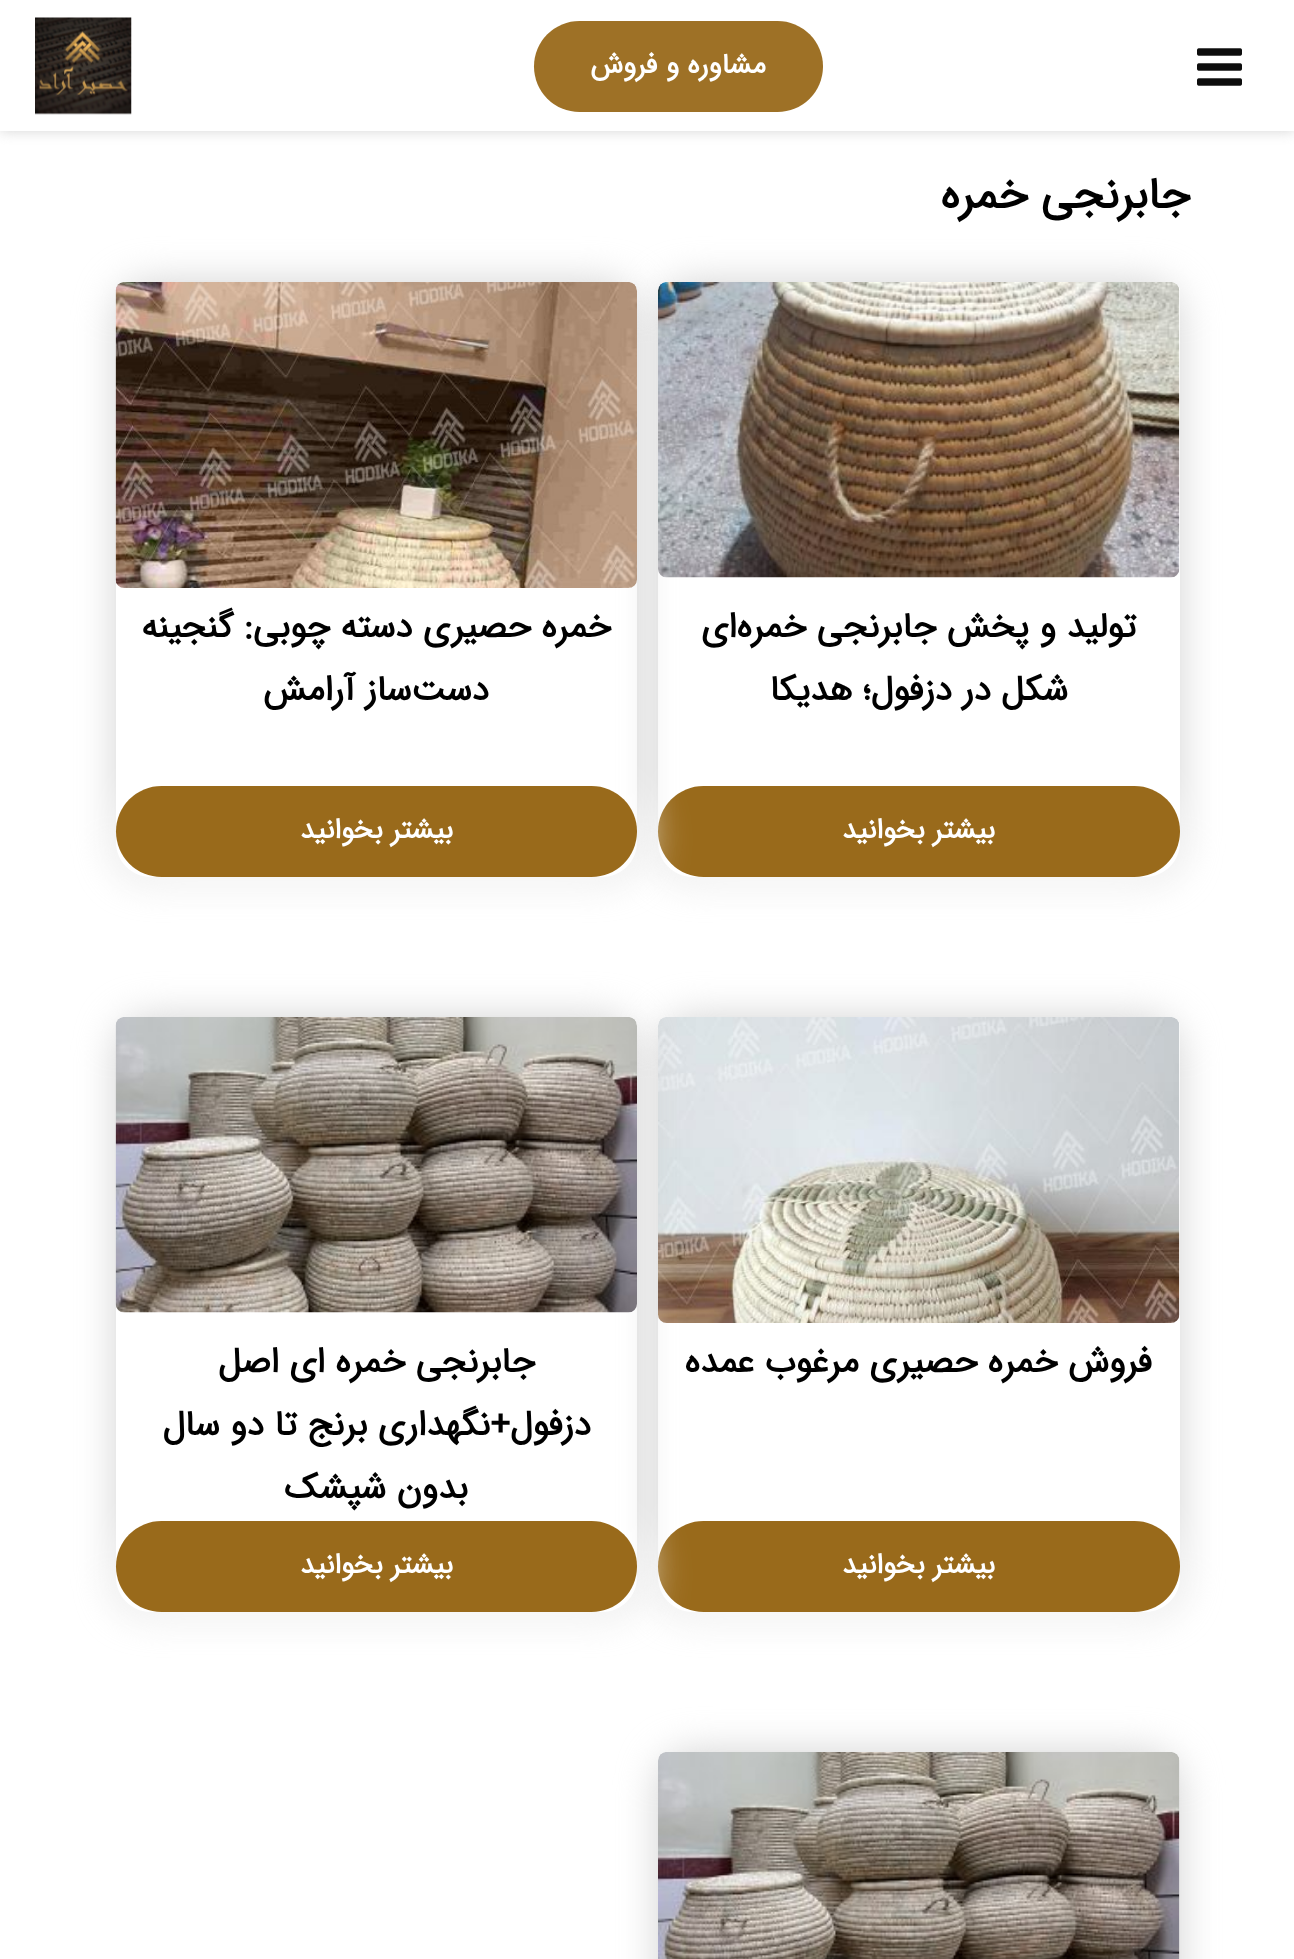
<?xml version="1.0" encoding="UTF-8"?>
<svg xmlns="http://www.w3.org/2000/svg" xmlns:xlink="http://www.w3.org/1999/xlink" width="1294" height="1959">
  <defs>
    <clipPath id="clip1"><rect x="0" y="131" width="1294" height="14" /></clipPath>
    <clipPath id="clip2"><rect x="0" y="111" width="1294" height="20" /></clipPath>
    <clipPath id="clip3"><path d="M 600 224 h 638 v 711 h -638 z m 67 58 h 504 c 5 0 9 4 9 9 v 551 c 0 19.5 -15.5 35 -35 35 h -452 c -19.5 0 -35 -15.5 -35 -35 v -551 c 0 -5 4 -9 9 -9 z" clip-rule="evenodd" /></clipPath>
    <clipPath id="clip4"><path d="M 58 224 h 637 v 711 h -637 z m 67 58 h 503 c 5 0 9 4 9 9 v 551 c 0 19.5 -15.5 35 -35 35 h -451 c -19.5 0 -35 -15.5 -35 -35 v -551 c 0 -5 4 -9 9 -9 z" clip-rule="evenodd" /></clipPath>
    <clipPath id="clip5"><path d="M 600 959 h 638 v 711 h -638 z m 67 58 h 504 c 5 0 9 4 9 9 v 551 c 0 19.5 -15.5 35 -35 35 h -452 c -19.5 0 -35 -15.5 -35 -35 v -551 c 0 -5 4 -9 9 -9 z" clip-rule="evenodd" /></clipPath>
    <clipPath id="clip6"><path d="M 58 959 h 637 v 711 h -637 z m 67 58 h 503 c 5 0 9 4 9 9 v 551 c 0 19.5 -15.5 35 -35 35 h -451 c -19.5 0 -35 -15.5 -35 -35 v -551 c 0 -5 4 -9 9 -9 z" clip-rule="evenodd" /></clipPath>
  </defs>
  <rect width="100%" height="100%" fill="#ffffff" />
  <g clip-path="url(#clip1)">
    <rect width="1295" height="131" fill="#d3d3d3" fill-opacity="0.95" filter="blur(7px)" />
  </g>
  <g clip-path="url(#clip2)">
    <rect y="140" width="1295" height="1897" fill="#1c4c9c" fill-opacity="0.15" filter="blur(26px)" />
  </g>
  <rect y="104" width="1294" height="27" fill="#ffffff" fill-opacity="0.95" />
  <image x="1197" y="48" width="45" height="38" xlink:href="image1.png" />
  <rect x="534" y="21" width="289" height="91" rx="45.5" fill="#9e7126" />
  <image x="35" y="17" width="97" height="98" xlink:href="image2.png" />
  <g clip-path="url(#clip3)">
    <rect x="658" y="282" width="522" height="595" rx="35" fill="#d3d3d3" filter="blur(19px)" />
  </g>
  <image x="658" y="282" width="522" height="296" xlink:href="image3.png" />
  <rect x="656" y="793" width="525" height="94" rx="47" fill="#ffffff" filter="blur(26px)" />
  <rect x="658" y="786" width="522" height="91" rx="45.5" fill="#996a1b" />
  <g clip-path="url(#clip4)">
    <rect x="116" y="282" width="521" height="595" rx="35" fill="#d3d3d3" filter="blur(19px)" />
  </g>
  <image x="115" y="282" width="522" height="306" xlink:href="image4.png" />
  <rect x="114" y="793" width="525" height="94" rx="47" fill="#ffffff" filter="blur(26px)" />
  <rect x="116" y="786" width="521" height="91" rx="45.5" fill="#996a1b" />
  <g clip-path="url(#clip5)">
    <rect x="658" y="1017" width="522" height="595" rx="35" fill="#d3d3d3" filter="blur(19px)" />
  </g>
  <image x="658" y="1017" width="522" height="306" xlink:href="image5.png" />
  <rect x="656" y="1528" width="525" height="94" rx="47" fill="#ffffff" filter="blur(26px)" />
  <rect x="658" y="1521" width="522" height="91" rx="45.5" fill="#996a1b" />
  <g clip-path="url(#clip6)">
    <rect x="116" y="1017" width="521" height="595" rx="35" fill="#d3d3d3" filter="blur(19px)" />
  </g>
  <image x="115" y="1017" width="522" height="296" xlink:href="image6.png" />
  <rect x="114" y="1528" width="525" height="94" rx="47" fill="#ffffff" filter="blur(26px)" />
  <rect x="116" y="1521" width="521" height="91" rx="45.5" fill="#996a1b" />
  <rect x="658" y="1752" width="522" height="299" rx="35" fill="#d3d3d3" filter="blur(19px)" />
  <image x="658" y="1752" width="522" height="207" xlink:href="image7.png" />
  <text x="766" y="73" style="font-family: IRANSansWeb; font-size: 28px; font-weight: bold; direction: rtl; fill: #ffffff">مشاوره و فروش</text>
  <text x="1190" y="208" style="font-family: IRANSansWeb; font-size: 43.75px; font-weight: bold; direction: rtl; fill: #000000">جابرنجی خمره</text>
  <text x="1136" y="637" style="font-family: IRANSansWeb; font-size: 35px; font-weight: bold; direction: rtl; fill: #000000">تولید و پخش جابرنجی خمره‌ای</text>
  <text x="1068" y="700" style="font-family: IRANSansWeb; font-size: 35px; font-weight: bold; direction: rtl; fill: #000000">شکل در دزفول؛ هدیکا</text>
  <text x="995" y="838" style="font-family: IRANSansWeb; font-size: 28px; font-weight: bold; direction: rtl; fill: #ffffff">بیشتر بخوانید</text>
  <text x="611" y="637" style="font-family: IRANSansWeb; font-size: 35px; font-weight: bold; direction: rtl; fill: #000000">خمره حصیری دسته چوبی: گنجینه</text>
  <text x="489" y="700" style="font-family: IRANSansWeb; font-size: 35px; font-weight: bold; direction: rtl; fill: #000000">دست‌ساز آرامش</text>
  <text x="453" y="838" style="font-family: IRANSansWeb; font-size: 28px; font-weight: bold; direction: rtl; fill: #ffffff">بیشتر بخوانید</text>
  <text x="1152" y="1372" style="font-family: IRANSansWeb; font-size: 35px; font-weight: bold; direction: rtl; fill: #000000">فروش خمره حصیری مرغوب عمده</text>
  <text x="995" y="1573" style="font-family: IRANSansWeb; font-size: 28px; font-weight: bold; direction: rtl; fill: #ffffff">بیشتر بخوانید</text>
  <text x="535" y="1372" style="font-family: IRANSansWeb; font-size: 35px; font-weight: bold; direction: rtl; fill: #000000">جابرنجی خمره ای اصل</text>
  <text x="591" y="1435" style="font-family: IRANSansWeb; font-size: 35px; font-weight: bold; direction: rtl; fill: #000000">دزفول+نگهداری برنج تا دو سال</text>
  <text x="468" y="1498" style="font-family: IRANSansWeb; font-size: 35px; font-weight: bold; direction: rtl; fill: #000000">بدون شپشک</text>
  <text x="453" y="1573" style="font-family: IRANSansWeb; font-size: 28px; font-weight: bold; direction: rtl; fill: #ffffff">بیشتر بخوانید</text>
</svg>
